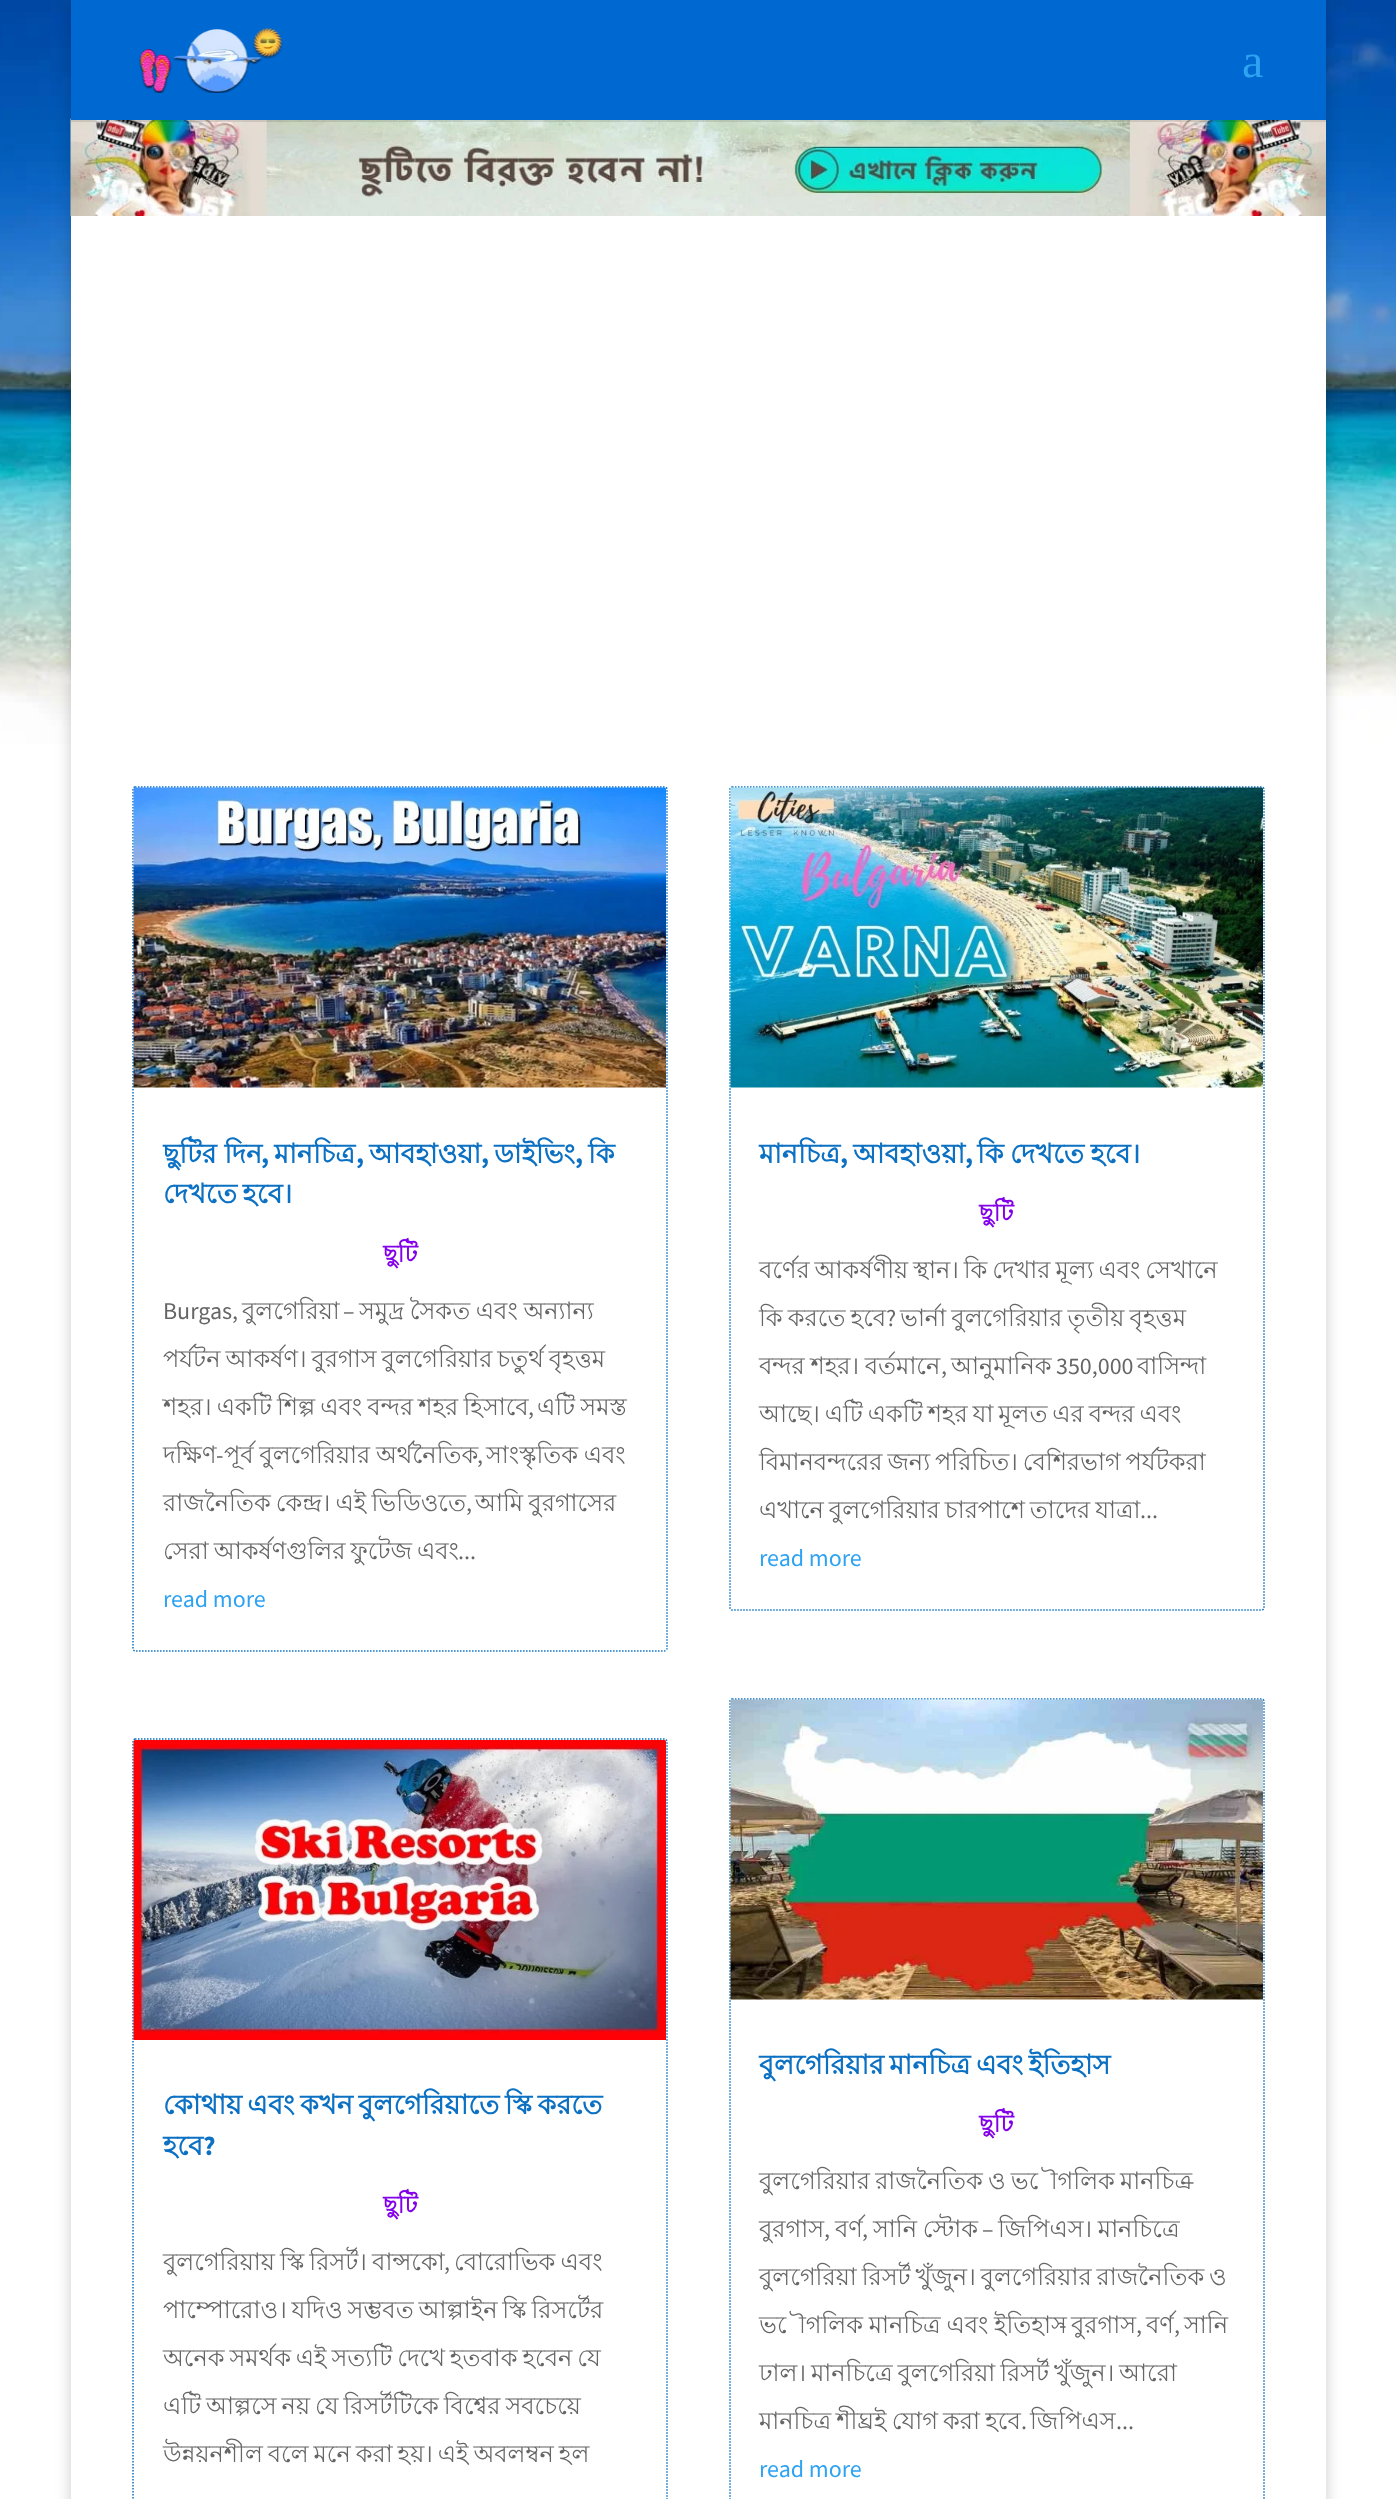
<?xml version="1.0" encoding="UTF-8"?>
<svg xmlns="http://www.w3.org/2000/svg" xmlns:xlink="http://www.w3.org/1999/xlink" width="1396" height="2499">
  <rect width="100%" height="100%" fill="#ffffff" />
  <image x="0" y="0" width="1396" height="744" xlink:href="image1.png" />
  <rect x="71" width="1255" height="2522" fill="#000000" fill-opacity="0.2" filter="blur(7.5px)" />
  <image x="70" y="118" width="1256" height="98" xlink:href="image3.png" />
  <rect x="71" y="120" width="1255" height="2" fill="#000000" fill-opacity="0.1" />
  <rect x="71" width="1255" height="120" fill="#0068d1" />
  <image x="139" y="27" width="144" height="66" xlink:href="image2.png" />
  <rect x="71" y="216" width="1255" height="2283" fill="#ffffff" />
  <path d="M 135 787 h 529.5 c 1 0 2.5 1 2.5 2 v 859.5 c 0 1 -1.5 2.5 -2.5 2.5 h -529.5 c -1 0 -2 -1.5 -2 -2.5 v -859.5 c 0 -1 1 -2 2 -2 z" fill="none" stroke="#0c71c3" stroke-width="1.5" stroke-dasharray="1.5 1.5" />
  <image x="133" y="787" width="533" height="301" xlink:href="image4.png" />
  <path d="M 135 1739 h 529.5 c 1 0 2.5 1.5 2.5 2.5 v 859.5 c 0 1 -1.5 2 -2.5 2 h -529.5 c -1 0 -2 -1 -2 -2 v -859.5 c 0 -1 1 -2.5 2 -2.5 z" fill="none" stroke="#0c71c3" stroke-width="1.5" stroke-dasharray="1.5 1.5" />
  <image x="133" y="1740" width="533" height="300" xlink:href="image5.png" />
  <path d="M 732 787 h 529.5 c 1 0 2.5 1 2.5 2 v 819 c 0 1 -1.5 2 -2.5 2 h -529.5 c -1 0 -2 -1 -2 -2 v -819 c 0 -1 1 -2 2 -2 z" fill="none" stroke="#0c71c3" stroke-width="1.5" stroke-dasharray="1.5 1.5" />
  <image x="730" y="787" width="533" height="301" xlink:href="image6.png" />
  <path d="M 732 1699 h 529.5 c 1 0 2.5 1 2.5 2 v 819 c 0 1 -1.5 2 -2.5 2 h -529.5 c -1 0 -2 -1 -2 -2 v -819 c 0 -1 1 -2 2 -2 z" fill="none" stroke="#0c71c3" stroke-width="1.5" stroke-dasharray="1.5 1.5" />
  <image x="730" y="1699" width="533" height="301" xlink:href="image7.png" />
  <text x="1242" y="77" style="font-family: Liberation Serif; font-size: 48px; fill: #2ea3f2">a</text>
  <text x="163" y="1163" style="font-family: Lohit Bengali; font-size: 27px; font-weight: bold; fill: #0c71c3">ছুটির দিন</text>
  <text x="261" y="1163" style="font-family: Source Sans Pro; font-size: 27px; font-weight: bold; fill: #0c71c3">,</text>
  <text x="274" y="1163" style="font-family: Lohit Bengali; font-size: 27px; font-weight: bold; fill: #0c71c3">মানচিত্র</text>
  <text x="356" y="1163" style="font-family: Source Sans Pro; font-size: 27px; font-weight: bold; fill: #0c71c3">,</text>
  <text x="369" y="1163" style="font-family: Lohit Bengali; font-size: 27px; font-weight: bold; fill: #0c71c3">আবহাওয়া</text>
  <text x="481" y="1163" style="font-family: Source Sans Pro; font-size: 27px; font-weight: bold; fill: #0c71c3">,</text>
  <text x="494" y="1163" style="font-family: Lohit Bengali; font-size: 27px; font-weight: bold; fill: #0c71c3">ডাইভিং</text>
  <text x="575" y="1163" style="font-family: Source Sans Pro; font-size: 27px; font-weight: bold; fill: #0c71c3">,</text>
  <text x="588" y="1163" style="font-family: Lohit Bengali; font-size: 27px; font-weight: bold; fill: #0c71c3">কি</text>
  <text x="163" y="1203" word-spacing="-2" style="font-family: Lohit Bengali; font-size: 27px; font-weight: bold; fill: #0c71c3">দেখতে হবে।</text>
  <text x="383" y="1262" style="font-family: Lohit Bengali; font-size: 24px; font-weight: bold; fill: #8300e9">ছুটি</text>
  <text x="163" y="1319" style="font-family: Source Sans Pro; font-size: 24px; fill: #666666">Burgas,</text>
  <text x="242" y="1319" style="font-family: Lohit Bengali; font-size: 24px; fill: #666666">বুলগেরিয়া</text>
  <text x="343" y="1319" style="font-family: Source Sans Pro; font-size: 24px; fill: #666666">–</text>
  <text x="359" y="1319" word-spacing="-1" style="font-family: Lohit Bengali; font-size: 24px; fill: #666666">সমুদ্র সৈকত এবং অন্যান্য</text>
  <text x="163" y="1367" word-spacing="-1.75" style="font-family: Lohit Bengali; font-size: 24px; fill: #666666">পর্যটন আকর্ষণ। বুরগাস বুলগেরিয়ার চতুর্থ বৃহত্তম</text>
  <text x="163" y="1415" word-spacing="-1.5" style="font-family: Lohit Bengali; font-size: 24px; fill: #666666">শহর। একটি শিল্প এবং বন্দর শহর হিসাবে</text>
  <text x="528" y="1415" style="font-family: Source Sans Pro; font-size: 24px; fill: #666666">,</text>
  <text x="537" y="1415" word-spacing="-1.5" style="font-family: Lohit Bengali; font-size: 24px; fill: #666666">এটি সমস্ত</text>
  <text x="163" y="1463" style="font-family: Lohit Bengali; font-size: 24px; fill: #666666">দক্ষিণ</text>
  <text x="486" y="1463" word-spacing="-1" style="font-family: Lohit Bengali; font-size: 24px; fill: #666666">সাংস্কৃতিক এবং</text>
  <text x="216" y="1463" style="font-family: Source Sans Pro; font-size: 24px; fill: #666666">-</text>
  <text x="224" y="1463" word-spacing="-1" style="font-family: Lohit Bengali; font-size: 24px; fill: #666666">পূর্ব বুলগেরিয়ার অর্থনৈতিক</text>
  <text x="477" y="1463" style="font-family: Source Sans Pro; font-size: 24px; fill: #666666">,</text>
  <text x="163" y="1511" word-spacing="-1.5" style="font-family: Lohit Bengali; font-size: 24px; fill: #666666">রাজনৈতিক কেন্দ্র। এই ভিডিওতে</text>
  <text x="466" y="1511" style="font-family: Source Sans Pro; font-size: 24px; fill: #666666">,</text>
  <text x="475" y="1511" word-spacing="-1.5" style="font-family: Lohit Bengali; font-size: 24px; fill: #666666">আমি বুরগাসের</text>
  <text x="163" y="1559" word-spacing="-1.75" style="font-family: Lohit Bengali; font-size: 24px; fill: #666666">সেরা আকর্ষণগুলির ফুটেজ এবং</text>
  <text x="458" y="1559" style="font-family: Source Sans Pro; font-size: 24px; fill: #666666">...</text>
  <text x="163" y="1607" style="font-family: Source Sans Pro; font-size: 24px; fill: #2ea3f2">read more</text>
  <text x="163" y="2114" word-spacing="-2" style="font-family: Lohit Bengali; font-size: 27px; font-weight: bold; fill: #0c71c3">কোথায় এবং কখন বুলগেরিয়াতে স্কি করতে</text>
  <text x="163" y="2155" style="font-family: Lohit Bengali; font-size: 27px; font-weight: bold; fill: #0c71c3">হবে</text>
  <text x="203" y="2155" style="font-family: Source Sans Pro; font-size: 27px; font-weight: bold; fill: #0c71c3">?</text>
  <text x="383" y="2213" style="font-family: Lohit Bengali; font-size: 24px; font-weight: bold; fill: #8300e9">ছুটি</text>
  <text x="163" y="2270" word-spacing="-1.5" style="font-family: Lohit Bengali; font-size: 24px; fill: #666666">বুলগেরিয়ায় স্কি রিসর্ট। বান্সকো</text>
  <text x="444" y="2270" style="font-family: Source Sans Pro; font-size: 24px; fill: #666666">,</text>
  <text x="454" y="2270" word-spacing="-1.5" style="font-family: Lohit Bengali; font-size: 24px; fill: #666666">বোরোভিক এবং</text>
  <text x="163" y="2318" word-spacing="-1.75" style="font-family: Lohit Bengali; font-size: 24px; fill: #666666">পাম্পোরোও। যদিও সম্ভবত আল্পাইন স্কি রিসর্টের</text>
  <text x="163" y="2366" word-spacing="-1.75" style="font-family: Lohit Bengali; font-size: 24px; fill: #666666">অনেক সমর্থক এই সত্যটি দেখে হতবাক হবেন যে</text>
  <text x="163" y="2414" word-spacing="-1.75" style="font-family: Lohit Bengali; font-size: 24px; fill: #666666">এটি আল্পসে নয় যে রিসর্টটিকে বিশ্বের সবচেয়ে</text>
  <text x="163" y="2462" word-spacing="-1.75" style="font-family: Lohit Bengali; font-size: 24px; fill: #666666">উন্নয়নশীল বলে মনে করা হয়। এই অবলম্বন হল</text>
  <text x="759" y="1163" style="font-family: Lohit Bengali; font-size: 27px; font-weight: bold; fill: #0c71c3">মানচিত্র</text>
  <text x="840" y="1163" style="font-family: Source Sans Pro; font-size: 27px; font-weight: bold; fill: #0c71c3">,</text>
  <text x="853" y="1163" style="font-family: Lohit Bengali; font-size: 27px; font-weight: bold; fill: #0c71c3">আবহাওয়া</text>
  <text x="965" y="1163" style="font-family: Source Sans Pro; font-size: 27px; font-weight: bold; fill: #0c71c3">,</text>
  <text x="977" y="1163" word-spacing="-1" style="font-family: Lohit Bengali; font-size: 27px; font-weight: bold; fill: #0c71c3">কি দেখতে হবে।</text>
  <text x="979" y="1221" style="font-family: Lohit Bengali; font-size: 24px; font-weight: bold; fill: #8300e9">ছুটি</text>
  <text x="759" y="1278" word-spacing="-1.75" style="font-family: Lohit Bengali; font-size: 24px; fill: #666666">বর্ণের আকর্ষণীয় স্থান। কি দেখার মূল্য এবং সেখানে</text>
  <text x="759" y="1326" word-spacing="-1.5" style="font-family: Lohit Bengali; font-size: 24px; fill: #666666">কি করতে হবে</text>
  <text x="886" y="1326" style="font-family: Source Sans Pro; font-size: 24px; fill: #666666">?</text>
  <text x="900" y="1326" word-spacing="-1.5" style="font-family: Lohit Bengali; font-size: 24px; fill: #666666">ভার্না বুলগেরিয়ার তৃতীয় বৃহত্তম</text>
  <text x="759" y="1374" word-spacing="-1" style="font-family: Lohit Bengali; font-size: 24px; fill: #666666">বন্দর শহর। বর্তমানে</text>
  <text x="941" y="1374" style="font-family: Source Sans Pro; font-size: 24px; fill: #666666">,</text>
  <text x="951" y="1374" style="font-family: Lohit Bengali; font-size: 24px; fill: #666666">আনুমানিক</text>
  <text x="1056" y="1374" style="font-family: Source Sans Pro; font-size: 24px; fill: #666666">350,000</text>
  <text x="1137" y="1374" style="font-family: Lohit Bengali; font-size: 24px; fill: #666666">বাসিন্দা</text>
  <text x="759" y="1422" word-spacing="-1.75" style="font-family: Lohit Bengali; font-size: 24px; fill: #666666">আছে। এটি একটি শহর যা মূলত এর বন্দর এবং</text>
  <text x="759" y="1470" word-spacing="-1.75" style="font-family: Lohit Bengali; font-size: 24px; fill: #666666">বিমানবন্দরের জন্য পরিচিত। বেশিরভাগ পর্যটকরা</text>
  <text x="759" y="1518" word-spacing="-1.75" style="font-family: Lohit Bengali; font-size: 24px; fill: #666666">এখানে বুলগেরিয়ার চারপাশে তাদের যাত্রা</text>
  <text x="1140" y="1518" style="font-family: Source Sans Pro; font-size: 24px; fill: #666666">...</text>
  <text x="759" y="1566" style="font-family: Source Sans Pro; font-size: 24px; fill: #2ea3f2">read more</text>
  <text x="759" y="2074" word-spacing="-2" style="font-family: Lohit Bengali; font-size: 27px; font-weight: bold; fill: #0c71c3">বুলগেরিয়ার মানচিত্র এবং ইতিহাস</text>
  <text x="979" y="2132" style="font-family: Lohit Bengali; font-size: 24px; font-weight: bold; fill: #8300e9">ছুটি</text>
  <text x="759" y="2189" word-spacing="-1.5" style="font-family: Lohit Bengali; font-size: 24px; fill: #666666">বুলগেরিয়ার রাজনৈতিক ও ভৌগলিক মানচিত্র</text>
  <text x="1183" y="2189" style="font-family: Source Sans Pro; font-size: 24px; fill: #666666">–</text>
  <text x="759" y="2237" style="font-family: Lohit Bengali; font-size: 24px; fill: #666666">বুরগাস</text>
  <text x="835" y="2237" style="font-family: Lohit Bengali; font-size: 24px; fill: #666666">বর্ণ</text>
  <text x="873" y="2237" word-spacing="-1" style="font-family: Lohit Bengali; font-size: 24px; fill: #666666">সানি স্টোক</text>
  <text x="982" y="2237" style="font-family: Source Sans Pro; font-size: 24px; fill: #666666">–</text>
  <text x="998" y="2237" word-spacing="-1" style="font-family: Lohit Bengali; font-size: 24px; fill: #666666">জিপিএস। মানচিত্রে</text>
  <text x="824" y="2237" style="font-family: Source Sans Pro; font-size: 24px; fill: #666666">,</text>
  <text x="862" y="2237" style="font-family: Source Sans Pro; font-size: 24px; fill: #666666">,</text>
  <text x="759" y="2285" word-spacing="-1.75" style="font-family: Lohit Bengali; font-size: 24px; fill: #666666">বুলগেরিয়া রিসর্ট খুঁজুন। বুলগেরিয়ার রাজনৈতিক ও</text>
  <text x="759" y="2333" word-spacing="-1" style="font-family: Lohit Bengali; font-size: 24px; fill: #666666">ভৌগলিক মানচিত্র এবং ইতিহাস</text>
  <text x="1146" y="2333" style="font-family: Lohit Bengali; font-size: 24px; fill: #666666">বর্ণ</text>
  <text x="1184" y="2333" style="font-family: Lohit Bengali; font-size: 24px; fill: #666666">সানি</text>
  <text x="1059" y="2333" style="font-family: Source Sans Pro; font-size: 24px; fill: #666666">-</text>
  <text x="1071" y="2333" style="font-family: Lohit Bengali; font-size: 24px; fill: #666666">বুরগাস</text>
  <text x="1136" y="2333" style="font-family: Source Sans Pro; font-size: 24px; fill: #666666">,</text>
  <text x="1174" y="2333" style="font-family: Source Sans Pro; font-size: 24px; fill: #666666">,</text>
  <text x="759" y="2381" word-spacing="-1.75" style="font-family: Lohit Bengali; font-size: 24px; fill: #666666">ঢাল। মানচিত্রে বুলগেরিয়া রিসর্ট খুঁজুন। আরো</text>
  <text x="759" y="2429" word-spacing="-1.5" style="font-family: Lohit Bengali; font-size: 24px; fill: #666666">মানচিত্র শীঘ্রই যোগ করা হবে</text>
  <text x="1021" y="2429" style="font-family: Source Sans Pro; font-size: 24px; fill: #666666">.</text>
  <text x="1030" y="2429" style="font-family: Lohit Bengali; font-size: 24px; fill: #666666">জিপিএস</text>
  <text x="1116" y="2429" style="font-family: Source Sans Pro; font-size: 24px; fill: #666666">...</text>
  <text x="759" y="2477" style="font-family: Source Sans Pro; font-size: 24px; fill: #2ea3f2">read more</text>
</svg>
